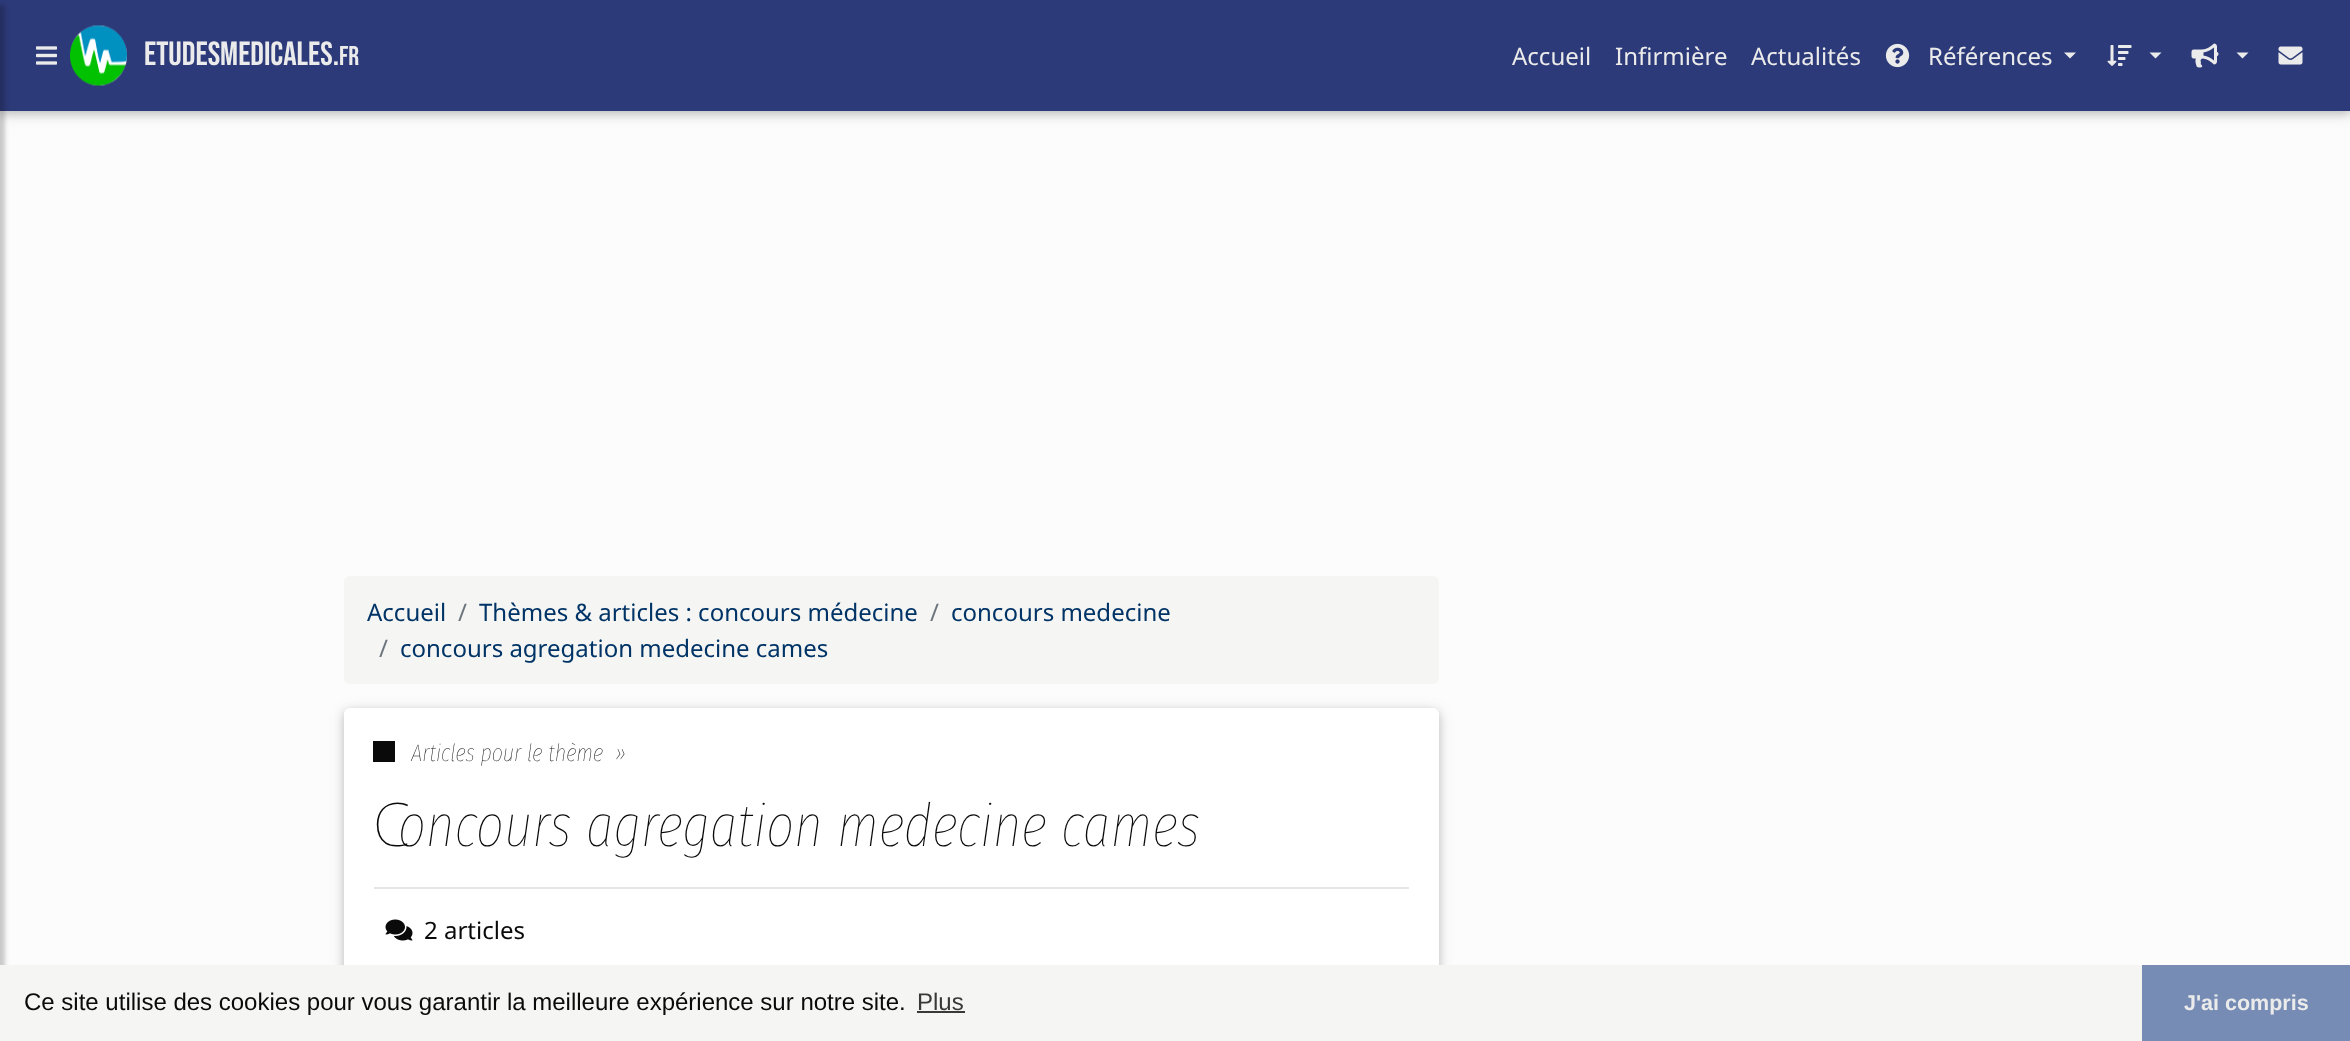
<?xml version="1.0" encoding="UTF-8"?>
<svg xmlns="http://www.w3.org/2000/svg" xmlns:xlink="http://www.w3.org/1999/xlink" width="2350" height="1041">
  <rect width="100%" height="100%" fill="#fcfcfc" />
  <rect y="3" width="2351" height="111" fill="#000000" fill-opacity="0.12" filter="blur(7.5px)" />
  <rect y="3" width="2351" height="111" fill="#000000" fill-opacity="0.16" filter="blur(4px)" />
  <rect width="2350" height="111" fill="#2d3a79" />
  <rect x="-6" y="5" width="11" height="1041" fill="#000000" fill-opacity="0.2" filter="blur(2px)" />
  <image x="36" y="46" width="21" height="19" xlink:href="image1.png" />
  <image x="70" y="25" width="57" height="61" xlink:href="image2.png" />
  <image x="1885" y="43" width="25" height="25" xlink:href="image3.png" />
  <path d="M 2064 52.5 h 12 l -6 6 z" fill="#ebebeb" />
  <image x="2107" y="45" width="25" height="21" xlink:href="image4.png" />
  <path d="M 2149.5 52.5 h 12 l -6 6 z" fill="#ebebeb" />
  <image x="2191" y="43" width="28" height="25" xlink:href="image5.png" />
  <path d="M 2236.5 52.5 h 12 l -6 6 z" fill="#ebebeb" />
  <image x="2278" y="46" width="25" height="19" xlink:href="image6.png" />
  <rect x="344" y="576" width="1095" height="108" rx="6" fill="#f5f6f4" />
  <rect x="344" y="711" width="1095" height="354" rx="6" fill="#000000" fill-opacity="0.12" filter="blur(7.5px)" />
  <rect x="344" y="711" width="1095" height="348" rx="6" fill="#000000" fill-opacity="0.16" filter="blur(4px)" />
  <rect x="344" y="708" width="1095" height="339" rx="6" fill="#ffffff" />
  <rect x="373" y="741" width="22" height="21" fill="#0a0a0a" />
  <rect x="374" y="887" width="1035" height="2" fill="#e6e6e6" />
  <image x="385" y="919" width="28" height="22" xlink:href="image7.png" />
  <rect y="965" width="2142" height="76" fill="#f5f6f4" />
  <rect x="917" y="1011" width="48" height="2" fill="#393939" />
  <rect x="2142" y="965" width="208" height="76" fill="#768cb4" />
  <text x="144" y="65" style="font-family: Bebas Neue; font-size: 33.5px; fill: #ebebeb">etudesmedicales.</text>
  <text x="339" y="65" style="font-family: Bebas Neue; font-size: 27px; fill: #ebebeb">fr</text>
  <text x="1512" y="65" style="font-family: Noto Sans; font-size: 24px; fill: #ebebeb">Accueil</text>
  <text x="1615" y="65" style="font-family: Noto Sans; font-size: 24px; fill: #ebebeb">Infirmière</text>
  <text x="1751" y="65" style="font-family: Noto Sans; font-size: 24px; fill: #ebebeb">Actualités</text>
  <text x="1928" y="65" style="font-family: Noto Sans; font-size: 24px; fill: #ebebeb">Références</text>
  <text x="367" y="621" style="font-family: Noto Sans; font-size: 24px; fill: #003366">Accueil</text>
  <text x="458" y="621" style="font-family: Noto Sans; font-size: 24px; fill: #6c757d">/</text>
  <text x="479" y="621" style="font-family: Noto Sans; font-size: 24px; fill: #003366">Thèmes &amp; articles : concours médecine</text>
  <text x="930" y="621" style="font-family: Noto Sans; font-size: 24px; fill: #6c757d">/</text>
  <text x="951" y="621" style="font-family: Noto Sans; font-size: 24px; fill: #003366">concours medecine</text>
  <text x="379" y="657" style="font-family: Noto Sans; font-size: 24px; fill: #6c757d">/</text>
  <text x="400" y="657" style="font-family: Noto Sans; font-size: 24px; fill: #003366">concours agregation medecine cames</text>
  <text x="411" y="761" style="font-family: Fira Sans Extra Condensed; font-size: 24px; font-weight: 100; font-style: italic; fill: #0a0a0a">Articles pour le thème</text>
  <text x="615" y="761" style="font-family: Fira Sans Extra Condensed; font-size: 24px; font-weight: 100; font-style: italic; fill: #0a0a0a">»</text>
  <text x="373" y="846" style="font-family: Noto Sans; font-size: 60px; font-weight: 100; fill: #0a0a0a">C</text>
  <text x="398" y="846" style="font-family: Fira Sans Extra Condensed; font-size: 60px; font-weight: 100; font-style: italic; fill: #0a0a0a">oncours agregation medecine cames</text>
  <text x="424" y="939" style="font-family: Noto Sans; font-size: 24px; fill: #0a0a0a">2 articles</text>
  <text x="24" y="1010" style="font-family: Liberation Sans; font-size: 24px; fill: #0a0a0a">Ce site utilise des cookies pour vous garantir la meilleure expérience sur notre site.</text>
  <text x="917" y="1010" style="font-family: Liberation Sans; font-size: 24px; fill: #393939">Plus</text>
  <text x="2184" y="1010" style="font-family: Liberation Sans; font-size: 21.5px; font-weight: bold; fill: #ebebeb">J'ai compris</text>
</svg>
